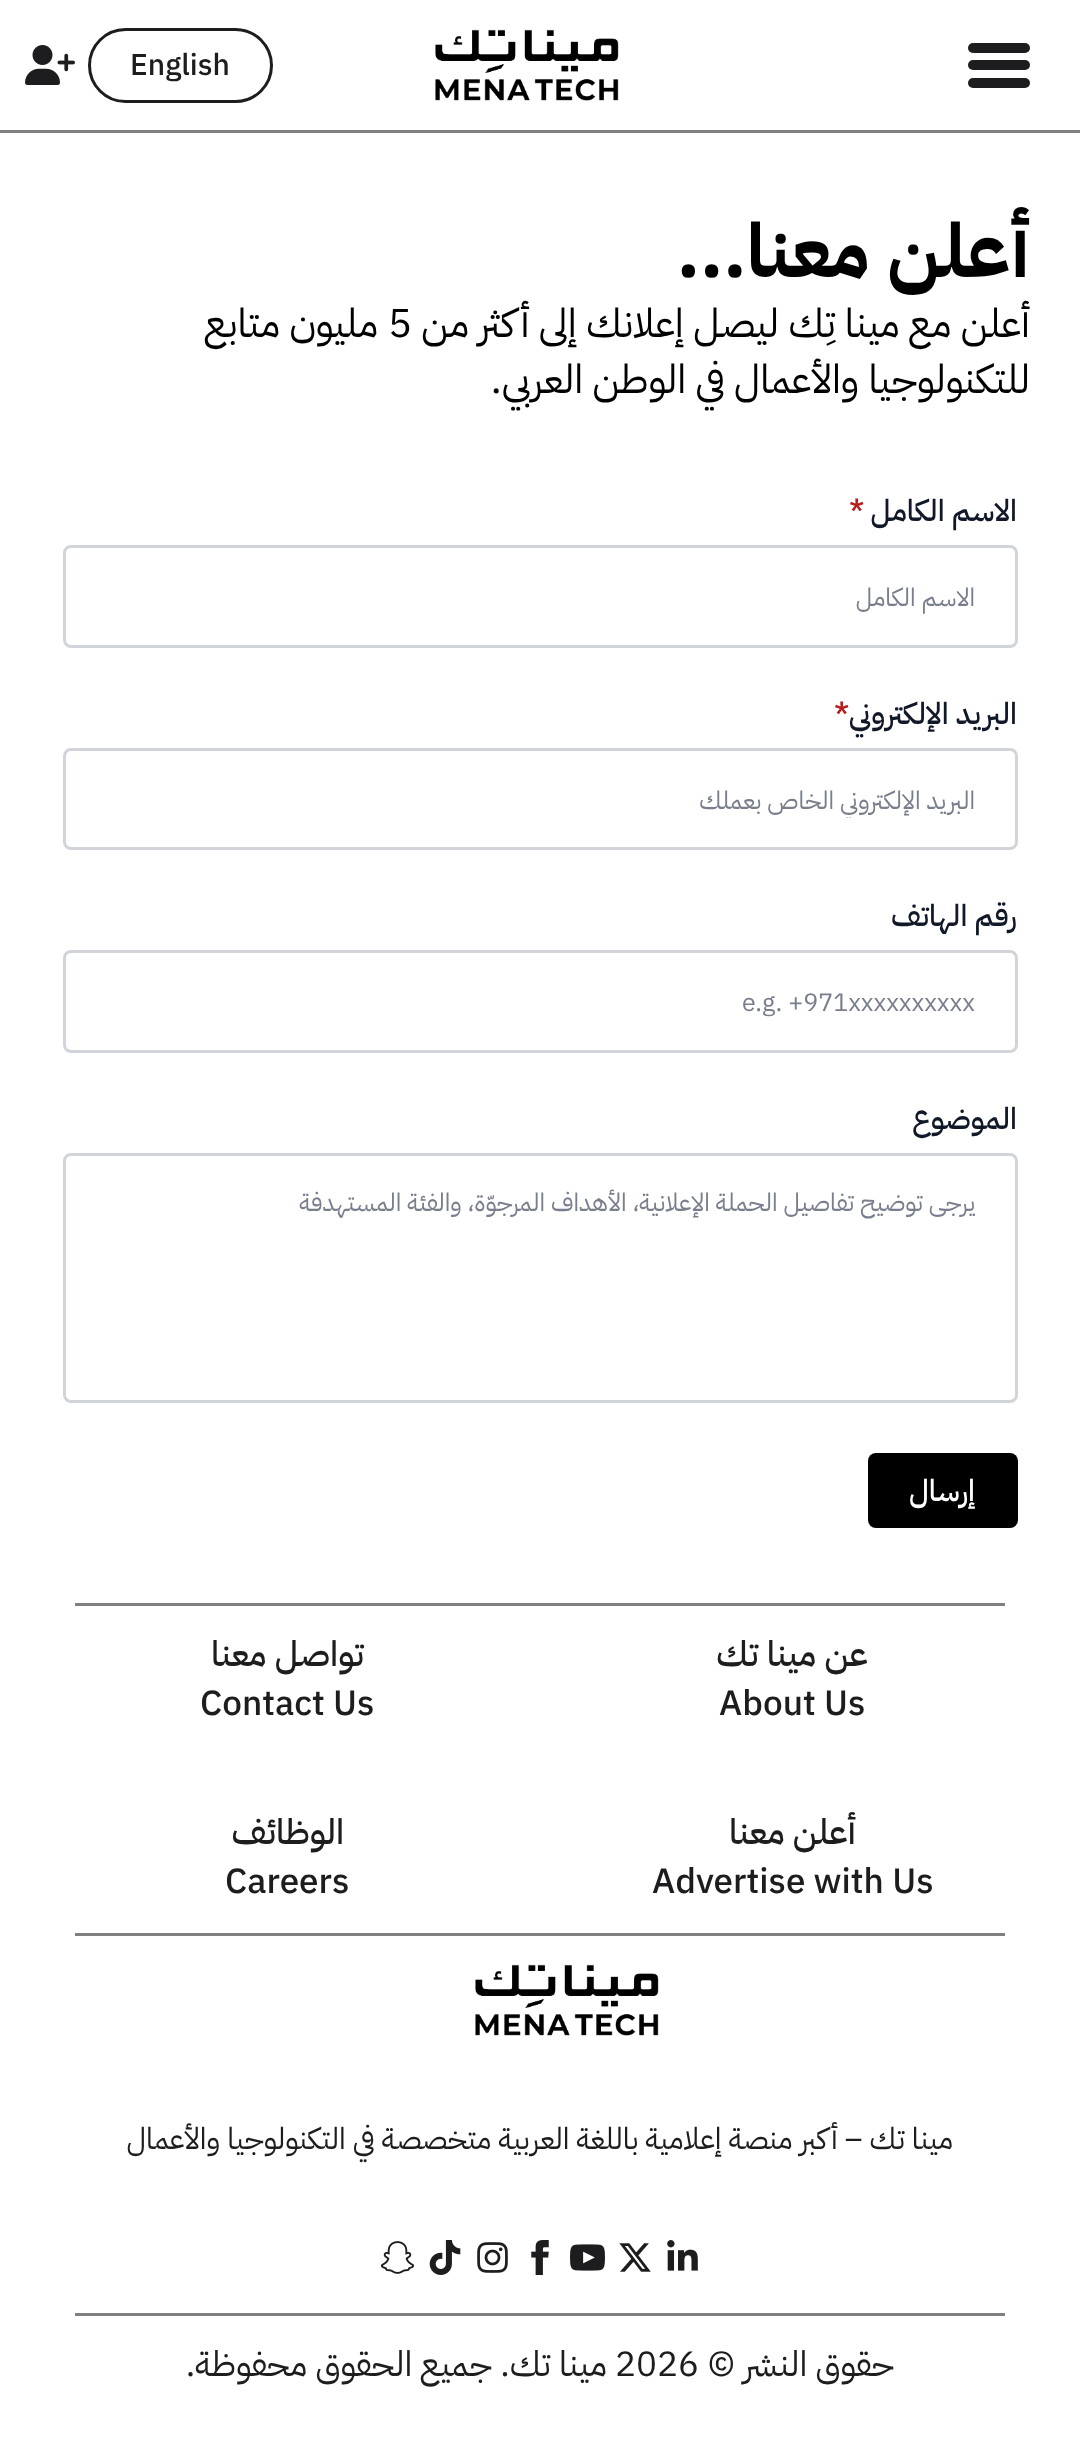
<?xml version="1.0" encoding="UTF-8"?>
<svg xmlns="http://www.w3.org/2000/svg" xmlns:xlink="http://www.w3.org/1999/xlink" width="1080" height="2455">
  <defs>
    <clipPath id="clip1"><rect x="105" y="780" width="870" height="38" /></clipPath>
  </defs>
  <rect width="100%" height="100%" fill="#ffffff" />
  <rect y="130" width="1080" height="3" fill="#808080" />
  <rect x="968" y="60" width="62" height="10" rx="5" fill="#1d1d1f" />
  <rect x="968" y="43" width="62" height="10" rx="5" fill="#1d1d1f" />
  <rect x="968" y="78" width="62" height="10" rx="5" fill="#1d1d1f" />
  <image x="435" y="29" width="184" height="72" xlink:href="image1.png" />
  <rect x="89.5" y="29.5" width="182" height="72" rx="36" fill="none" stroke="#1d1d1f" stroke-width="3" />
  <image x="25" y="45" width="50" height="40" xlink:href="image2.png" />
  <rect x="64.5" y="546.5" width="952" height="100" rx="6.5" fill="none" stroke="#d1d5db" stroke-width="3" />
  <rect x="64.5" y="749.5" width="952" height="99" rx="6.5" fill="none" stroke="#d1d5db" stroke-width="3" />
  <rect x="64.5" y="951.5" width="952" height="100" rx="6.5" fill="none" stroke="#d1d5db" stroke-width="3" />
  <rect x="64.5" y="1154.5" width="952" height="247" rx="6.5" fill="none" stroke="#d1d5db" stroke-width="3" />
  <rect x="868" y="1453" width="150" height="75" rx="8" fill="#000000" />
  <rect x="75" y="1603" width="930" height="3" fill="#808080" />
  <rect x="75" y="1933" width="930" height="3" fill="#808080" />
  <image x="475" y="1964" width="184" height="72" xlink:href="image1.png" />
  <image x="667" y="2240" width="31" height="31" xlink:href="image3.png" />
  <image x="619" y="2243" width="32" height="29" xlink:href="image4.png" />
  <image x="570" y="2244" width="35" height="27" xlink:href="image5.png" />
  <image x="531" y="2240" width="18" height="35" xlink:href="image6.png" />
  <image x="477" y="2242" width="31" height="31" xlink:href="image7.png" />
  <image x="429" y="2240" width="32" height="35" xlink:href="image8.png" />
  <image x="380" y="2241" width="35" height="33" xlink:href="image9.png" />
  <rect x="75" y="2313" width="930" height="3" fill="#808080" />
  <text x="130" y="75" style="font-family: IBM Plex Sans Arabic; font-size: 30px; font-weight: 500; fill: #1d1d1f">English</text>
  <text x="1030" y="277" style="font-family: IBM Plex Sans Arabic; font-size: 75px; font-weight: bold; direction: rtl; fill: #000000">أعلن معنا...</text>
  <text x="1030" y="337" style="font-family: IBM Plex Sans Arabic; font-size: 40px; direction: rtl; fill: #000000">أعلن مع مينا تِك ليصل إعلانك إلى أكثر من</text>
  <text x="388" y="337" style="font-family: IBM Plex Sans Arabic; font-size: 40px; fill: #000000">5</text>
  <text x="378" y="337" style="font-family: IBM Plex Sans Arabic; font-size: 40px; direction: rtl; fill: #000000">مليون متابع</text>
  <text x="1030" y="393" style="font-family: IBM Plex Sans Arabic; font-size: 40px; direction: rtl; fill: #000000">للتكنولوجيا والأعمال في الوطن العربي.</text>
  <text x="1017" y="521" style="font-family: IBM Plex Sans Arabic; font-size: 30px; font-weight: 500; direction: rtl; fill: #111827">الاسم الكامل</text>
  <text x="849" y="521" style="font-family: IBM Plex Sans Arabic; font-size: 30px; font-weight: 500; fill: #b91c1c">*</text>
  <text x="975" y="606" style="font-family: IBM Plex Sans Arabic; font-size: 25px; direction: rtl; fill: #787e8b">الاسم الكامل</text>
  <text x="1017" y="724" style="font-family: IBM Plex Sans Arabic; font-size: 30px; font-weight: 500; direction: rtl; fill: #111827">البريد الإلكتروني</text>
  <text x="834" y="724" style="font-family: IBM Plex Sans Arabic; font-size: 30px; font-weight: 500; fill: #b91c1c">*</text>
  <g clip-path="url(#clip1)">
    <text x="975" y="809" style="font-family: IBM Plex Sans Arabic; font-size: 25px; direction: rtl; fill: #787e8b">البريد الإلكتروني الخاص بعملك</text>
  </g>
  <text x="1017" y="926" style="font-family: IBM Plex Sans Arabic; font-size: 30px; font-weight: 500; direction: rtl; fill: #111827">رقم الهاتف</text>
  <text x="742" y="1011" style="font-family: IBM Plex Sans Arabic; font-size: 25px; fill: #787e8b">e.g. +971xxxxxxxxxx</text>
  <text x="1017" y="1129" style="font-family: IBM Plex Sans Arabic; font-size: 30px; font-weight: 500; direction: rtl; fill: #111827">الموضوع</text>
  <text x="975" y="1211" style="font-family: IBM Plex Sans Arabic; font-size: 25px; direction: rtl; fill: #787e8b">يرجى توضيح تفاصيل الحملة الإعلانية، الأهداف المرجوّة، والفئة المستهدفة</text>
  <text x="975" y="1501" style="font-family: IBM Plex Sans Arabic; font-size: 30px; font-weight: 500; direction: rtl; fill: #ffffff">إرسال</text>
  <text x="868" y="1666" style="font-family: IBM Plex Sans Arabic; font-size: 35px; font-weight: 500; direction: rtl; fill: #1d1d1f">عن مينا تك</text>
  <text x="719" y="1715" style="font-family: IBM Plex Sans Arabic; font-size: 35px; font-weight: 500; fill: #1d1d1f">About Us</text>
  <text x="364" y="1666" style="font-family: IBM Plex Sans Arabic; font-size: 35px; font-weight: 500; direction: rtl; fill: #1d1d1f">تواصل معنا</text>
  <text x="200" y="1715" style="font-family: IBM Plex Sans Arabic; font-size: 35px; font-weight: 500; fill: #1d1d1f">Contact Us</text>
  <text x="856" y="1844" style="font-family: IBM Plex Sans Arabic; font-size: 35px; font-weight: 500; direction: rtl; fill: #1d1d1f">أعلن معنا</text>
  <text x="652" y="1893" style="font-family: IBM Plex Sans Arabic; font-size: 35px; font-weight: 500; fill: #1d1d1f">Advertise with Us</text>
  <text x="344" y="1844" style="font-family: IBM Plex Sans Arabic; font-size: 35px; font-weight: 500; direction: rtl; fill: #1d1d1f">الوظائف</text>
  <text x="225" y="1893" style="font-family: IBM Plex Sans Arabic; font-size: 35px; font-weight: 500; fill: #1d1d1f">Careers</text>
  <text x="953" y="2149" style="font-family: IBM Plex Sans Arabic; font-size: 30px; direction: rtl; fill: #1d1d1f">مينا تك – أكبر منصة إعلامية باللغة العربية متخصصة في التكنولوجيا والأعمال</text>
  <text x="894" y="2376" style="font-family: IBM Plex Sans Arabic; font-size: 35px; direction: rtl; fill: #1d1d1f">حقوق النشر ©</text>
  <text x="615" y="2376" style="font-family: IBM Plex Sans Arabic; font-size: 35px; fill: #1d1d1f">2026</text>
  <text x="607" y="2376" style="font-family: IBM Plex Sans Arabic; font-size: 35px; direction: rtl; fill: #1d1d1f">مينا تك. جميع الحقوق محفوظة.</text>
</svg>
